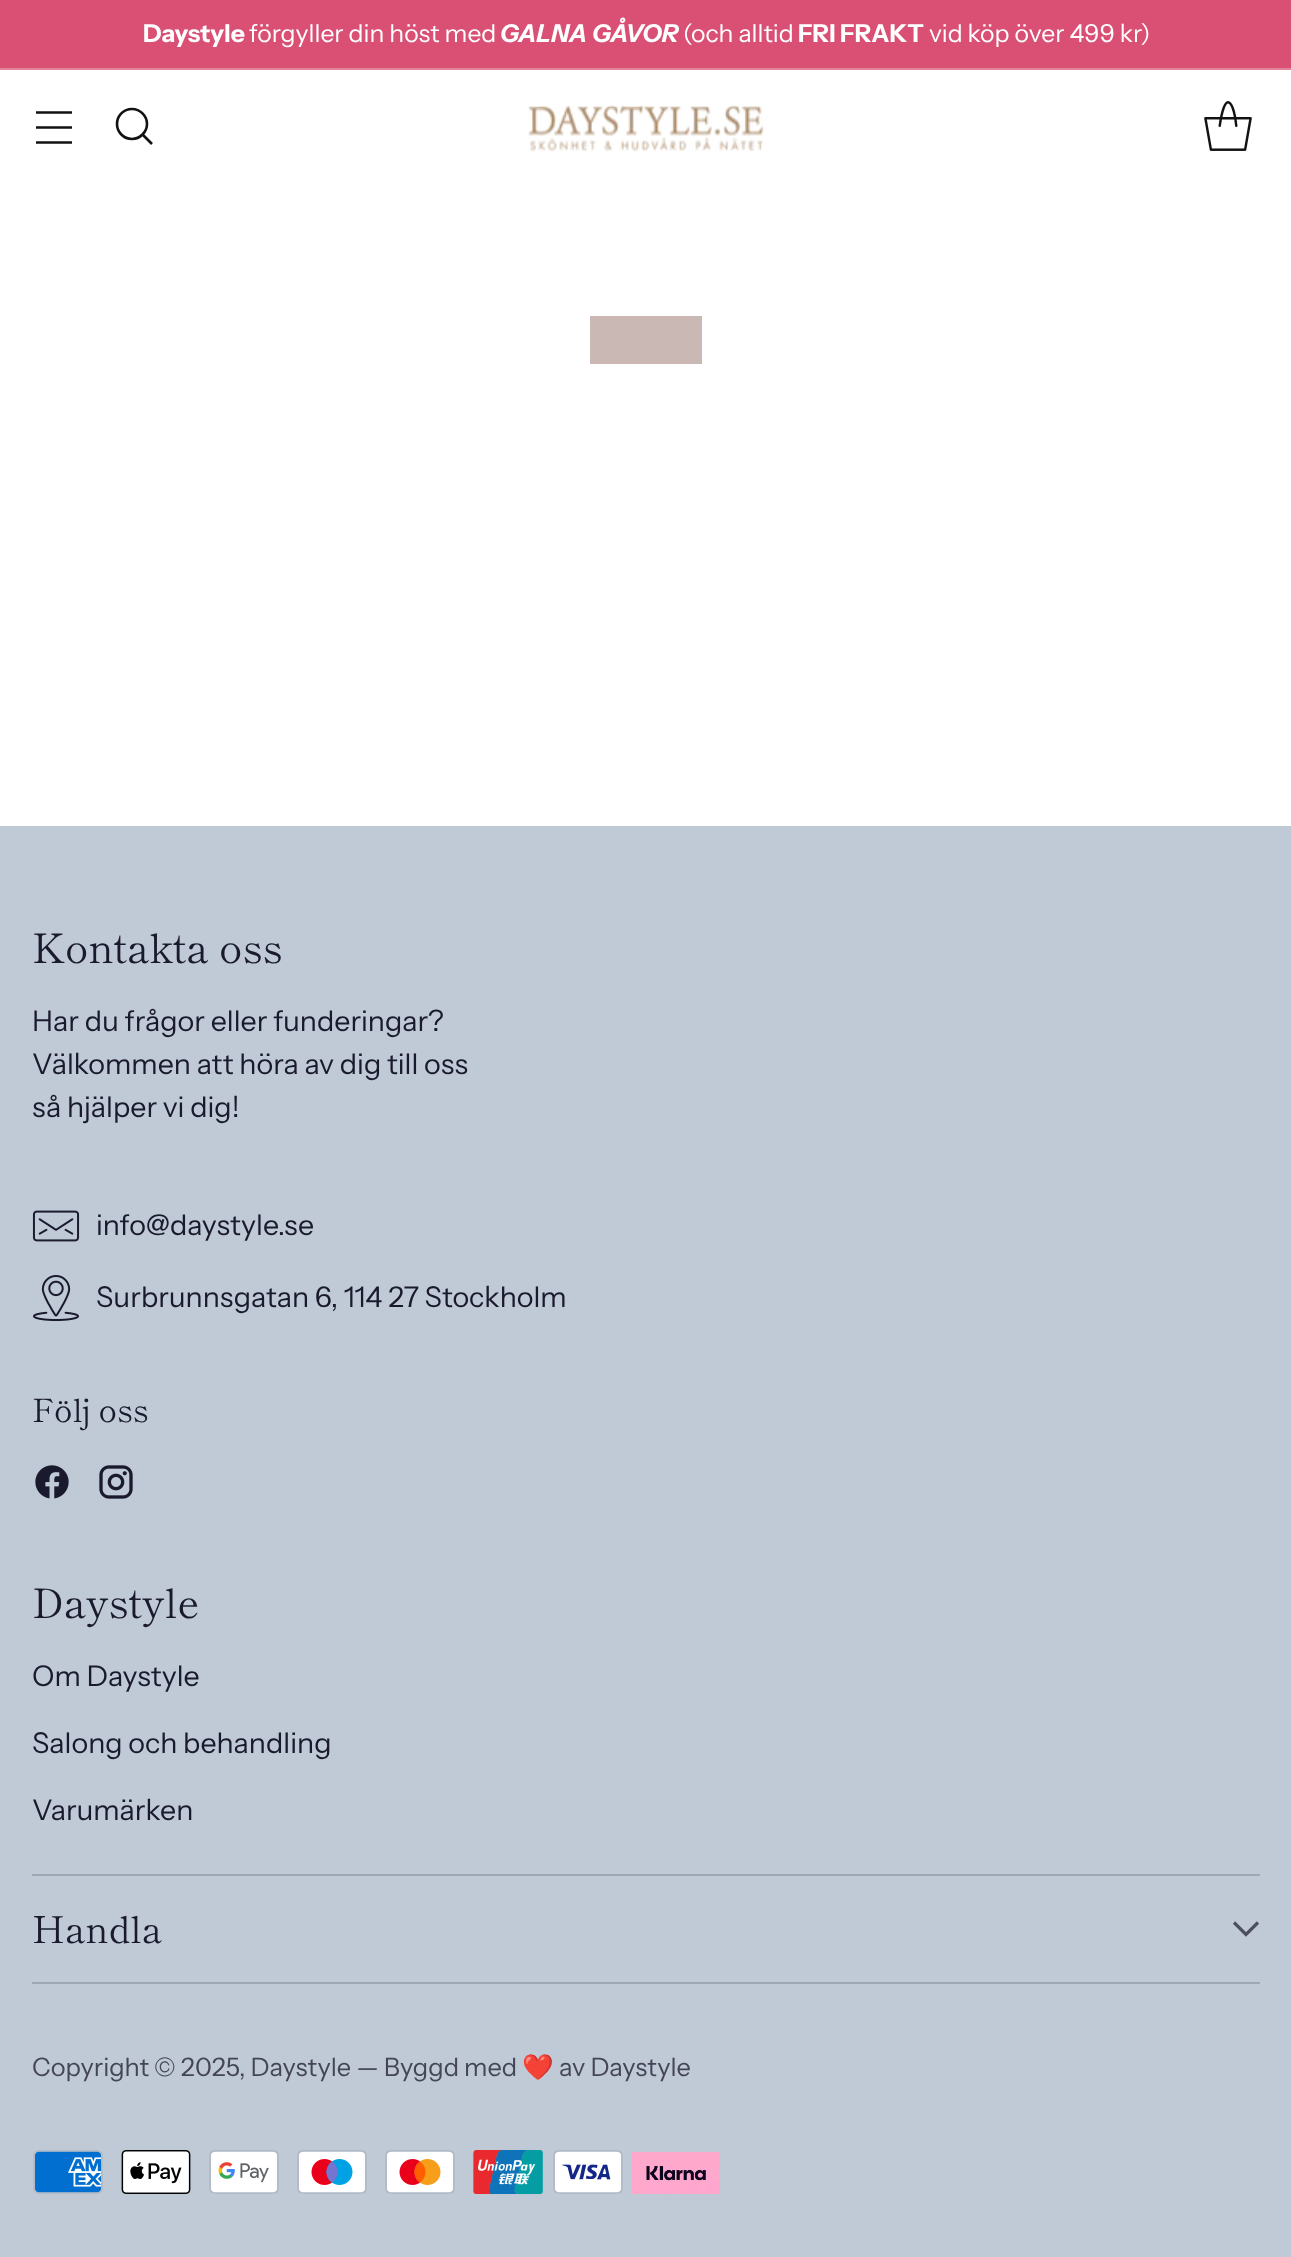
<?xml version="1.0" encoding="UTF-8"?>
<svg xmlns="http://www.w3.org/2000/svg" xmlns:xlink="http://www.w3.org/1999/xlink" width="1291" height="2257">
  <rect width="100%" height="100%" fill="#ffffff" />
  <rect width="1291" height="68" fill="#d95074" />
  <rect y="68" width="1291" height="2" fill="#e4859e" />
  <path d="M 36 127.5 h 36 m -36 -15 h 36 m -36 30 h 36" fill="none" stroke="#121212" stroke-width="2.6" />
  <path d="M 132 139 c 8 0 15 -7 15 -15 c 0 -8.5 -7 -15 -15 -15 c -8.5 0 -15 6.5 -15 15 c 0 8 6.5 15 15 15 z" fill="none" stroke="#121212" stroke-width="2.6" stroke-linecap="round" />
  <path d="M 142.5 134.5 l 9.5 9.5" fill="none" stroke="#121212" stroke-width="2.6" />
  <image x="528" y="105" width="236" height="47" xlink:href="image1.png" />
  <image x="1204" y="101" width="48" height="50" xlink:href="image2.png" />
  <rect x="590" y="316" width="112" height="48" fill="#c9b8b3" />
  <rect y="826" width="1291" height="1431" fill="#c0cad6" />
  <image x="32" y="1210" width="48" height="32" xlink:href="image3.png" />
  <image x="33" y="1275" width="46" height="47" xlink:href="image4.png" />
  <image x="35" y="1465" width="34" height="34" xlink:href="image5.png" />
  <image x="99" y="1465" width="34" height="34" xlink:href="image6.png" />
  <rect x="32" y="1874" width="1228" height="2" fill="#9fa7b4" />
  <rect x="32" y="1982" width="1228" height="2" fill="#9fa7b4" />
  <path d="M 1234 1922.5 l 12 12 l 12 -12" fill="none" stroke="#4c4f60" stroke-width="3.2" />
  <image x="33" y="2150" width="70" height="44" xlink:href="image7.png" />
  <image x="121" y="2150" width="70" height="44" xlink:href="image8.png" />
  <image x="209" y="2150" width="70" height="44" xlink:href="image9.png" />
  <image x="297" y="2150" width="70" height="44" xlink:href="image10.png" />
  <image x="385" y="2150" width="70" height="44" xlink:href="image11.png" />
  <image x="473" y="2150" width="70" height="44" xlink:href="image12.png" />
  <image x="553" y="2150" width="70" height="44" xlink:href="image13.png" />
  <image x="632" y="2152" width="88" height="42" xlink:href="image14.png" />
  <text x="143" y="42" style="font-family: Instrument Sans; font-size: 24.75px; font-weight: bold; fill: #ffffff">Daystyle</text>
  <text x="249" y="42" style="font-family: Instrument Sans; font-size: 24.75px; fill: #ffffff">förgyller din höst med</text>
  <text x="500" y="42" style="font-family: Instrument Sans; font-size: 24.75px; font-weight: bold; font-style: italic; fill: #ffffff">GALNA GÅVOR</text>
  <text x="683" y="42" style="font-family: Instrument Sans; font-size: 24.75px; fill: #ffffff">(och alltid</text>
  <text x="798" y="42" style="font-family: Instrument Sans; font-size: 24.75px; font-weight: bold; fill: #ffffff">FRI FRAKT</text>
  <text x="929" y="42" style="font-family: Instrument Sans; font-size: 24.75px; fill: #ffffff">vid köp över 499 kr)</text>
  <text x="32" y="963" style="font-family: Shippori Mincho; font-size: 40.5px; fill: #1a1a2e">Kontakta oss</text>
  <text x="32" y="1031" style="font-family: Instrument Sans; font-size: 28.6px; fill: #1a1a2e">Har du frågor eller funderingar?</text>
  <text x="32" y="1074" style="font-family: Instrument Sans; font-size: 28.6px; fill: #1a1a2e">Välkommen att höra av dig till oss</text>
  <text x="32" y="1117" style="font-family: Instrument Sans; font-size: 28.6px; fill: #1a1a2e">så hjälper vi dig!</text>
  <text x="96" y="1235" style="font-family: Instrument Sans; font-size: 28.6px; fill: #1a1a2e">info@daystyle.se</text>
  <text x="96" y="1307" style="font-family: Instrument Sans; font-size: 28.6px; fill: #1a1a2e">Surbrunnsgatan 6, 114 27 Stockholm</text>
  <text x="32" y="1422" style="font-family: Shippori Mincho; font-size: 32px; fill: #1a1a2e">Följ oss</text>
  <text x="32" y="1618" style="font-family: Shippori Mincho; font-size: 40.5px; fill: #1a1a2e">Daystyle</text>
  <text x="32" y="1686" style="font-family: Instrument Sans; font-size: 28.6px; fill: #1a1a2e">Om Daystyle</text>
  <text x="32" y="1753" style="font-family: Instrument Sans; font-size: 28.6px; fill: #1a1a2e">Salong och behandling</text>
  <text x="32" y="1820" style="font-family: Instrument Sans; font-size: 28.6px; fill: #1a1a2e">Varumärken</text>
  <text x="32" y="1943" style="font-family: Shippori Mincho; font-size: 37px; fill: #1a1a2e">Handla</text>
  <text x="32" y="2076" style="font-family: Instrument Sans; font-size: 25.4px; fill: #444658">Copyright © 2025, Daystyle — Byggd med</text>
  <text x="522" y="2076" style="font-family: Noto Color Emoji; font-size: 25.4px; fill: #444658">❤️</text>
  <text x="559" y="2076" style="font-family: Instrument Sans; font-size: 25.4px; fill: #444658">av Daystyle</text>
</svg>
